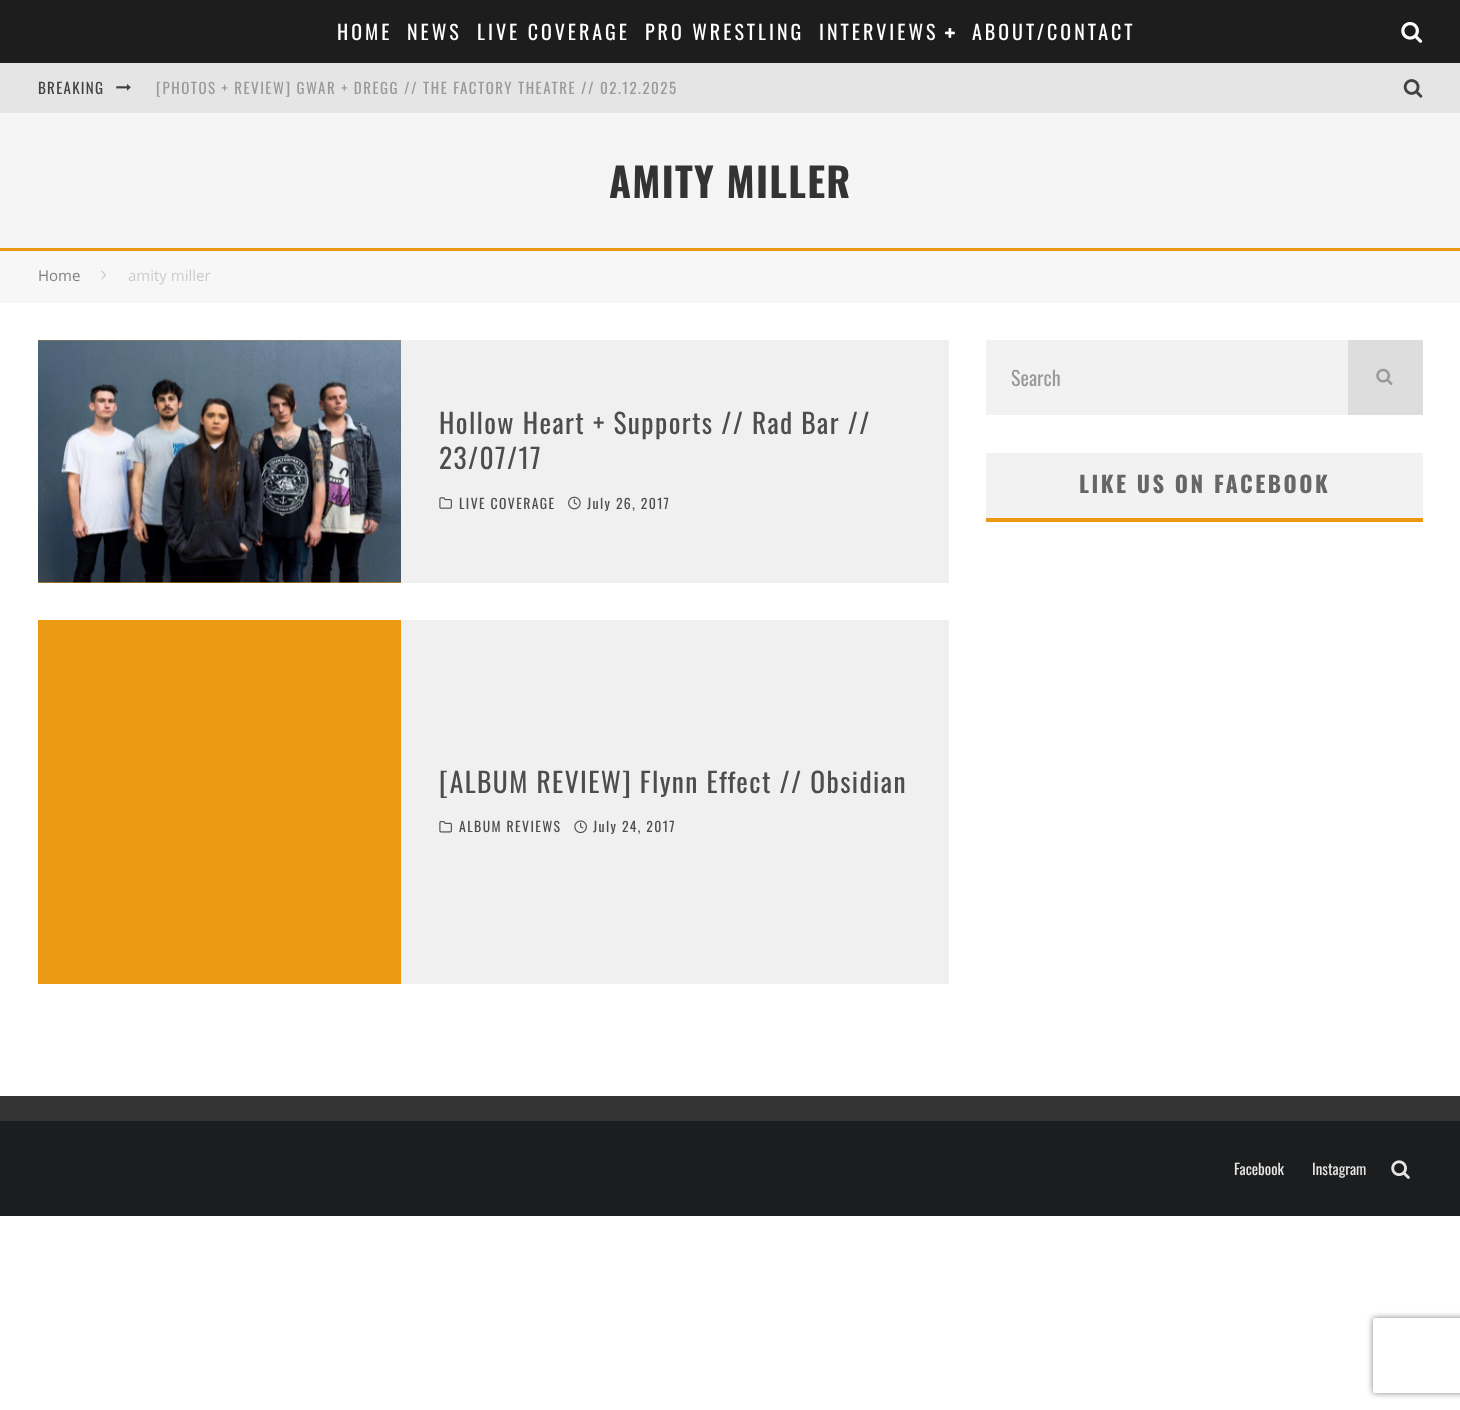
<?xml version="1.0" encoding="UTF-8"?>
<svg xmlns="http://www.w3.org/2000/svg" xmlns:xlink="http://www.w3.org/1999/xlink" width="1460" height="1410">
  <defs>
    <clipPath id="clip1"><path d="M 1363 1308 h 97 v 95 h -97 z m 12.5 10 h 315 c 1.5 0 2.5 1 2.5 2.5 v 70 c 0 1.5 -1 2.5 -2.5 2.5 h -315 c -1.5 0 -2.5 -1 -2.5 -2.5 v -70 c 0 -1.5 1 -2.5 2.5 -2.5 z" clip-rule="evenodd" /></clipPath>
  </defs>
  <rect width="100%" height="100%" fill="#ffffff" />
  <rect width="1460" height="63" fill="#1d1d1d" />
  <image x="945" y="28" width="10" height="10" xlink:href="image1.png" />
  <image x="1401" y="22" width="22" height="21" xlink:href="image2.png" />
  <rect y="63" width="1460" height="50" fill="#e5e5e5" />
  <image x="116" y="84" width="15" height="7" xlink:href="image3.png" />
  <image x="1403" y="79" width="20" height="19" xlink:href="image4.png" />
  <rect y="113" width="1460" height="135" fill="#f5f5f5" />
  <rect y="248" width="1460" height="3" fill="#eb9812" />
  <rect y="251" width="1460" height="52" fill="#f7f7f7" />
  <rect y="301" width="1460" height="1" fill="#f3f3f3" />
  <image x="101" y="270" width="5" height="10" xlink:href="image5.png" />
  <rect x="401" y="340" width="548" height="243" fill="#f0f0f0" />
  <rect x="38" y="340" width="363" height="243" fill="#eb9812" />
  <image x="38" y="340" width="363" height="243" xlink:href="image6.png" />
  <image x="439" y="497" width="13" height="12" xlink:href="image7.png" />
  <image x="568" y="496" width="13" height="14" xlink:href="image8.png" />
  <rect x="401" y="620" width="548" height="364" fill="#f0f0f0" />
  <rect x="38" y="620" width="363" height="364" fill="#eb9812" />
  <image x="439" y="821" width="13" height="12" xlink:href="image9.png" />
  <image x="574" y="820" width="13" height="14" xlink:href="image10.png" />
  <rect x="986" y="340" width="362" height="75" fill="#f2f2f2" />
  <rect x="1348" y="340" width="75" height="75" fill="#dddddd" />
  <image x="1376" y="368" width="17" height="17" xlink:href="image11.png" />
  <rect x="986" y="453" width="437" height="65" fill="#f2f2f2" />
  <rect x="986" y="518" width="437" height="4" fill="#eb9812" />
  <rect y="1121" width="1460" height="95" fill="#1c1d1e" />
  <rect y="1096" width="1460" height="25" fill="#333333" />
  <image x="1391" y="1160" width="19" height="19" xlink:href="image12.png" />
  <g clip-path="url(#clip1)">
    <rect x="1373" y="1318" width="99" height="75" rx="2.5" fill="#808080" filter="blur(3px)" />
  </g>
  <text x="337" y="40" style="font-family: Oswald; font-size: 20px; letter-spacing: 3px; fill: #ffffff">HOME</text>
  <text x="407" y="40" style="font-family: Oswald; font-size: 20px; letter-spacing: 3px; fill: #ffffff">NEWS</text>
  <text x="477" y="40" style="font-family: Oswald; font-size: 20px; letter-spacing: 3px; fill: #ffffff">LIVE COVERAGE</text>
  <text x="645" y="40" style="font-family: Oswald; font-size: 20px; letter-spacing: 3px; fill: #ffffff">PRO WRESTLING</text>
  <text x="819" y="40" style="font-family: Oswald; font-size: 20px; letter-spacing: 3px; fill: #ffffff">INTERVIEWS</text>
  <text x="972" y="40" style="font-family: Oswald; font-size: 20px; letter-spacing: 3px; fill: #ffffff">ABOUT/CONTACT</text>
  <text x="38" y="94" style="font-family: Oswald; font-size: 15px; letter-spacing: 1.25px; fill: #424242">BREAKING</text>
  <text x="156" y="94" style="font-family: Oswald; font-size: 15px; letter-spacing: 1.5px; fill: #999999">[PHOTOS + REVIEW] GWAR + DREGG // THE FACTORY THEATRE // 02.12.2025</text>
  <text x="609" y="198" style="font-family: Oswald; font-size: 40px; font-weight: bold; letter-spacing: 1.25px; fill: #333333">AMITY MILLER</text>
  <text x="38" y="281" style="font-family: Open Sans; font-size: 15px; fill: #808080">Home</text>
  <text x="128" y="281" style="font-family: Open Sans; font-size: 15px; fill: #cccccc">amity miller</text>
  <text x="439" y="434" style="font-family: Oswald; font-size: 27.5px; letter-spacing: 1.4px; fill: #4d4d4d">Hollow Heart + Supports // Rad Bar //</text>
  <text x="439" y="469" style="font-family: Oswald; font-size: 27.5px; letter-spacing: 1.4px; fill: #4d4d4d">23/07/17</text>
  <text x="459" y="509" style="font-family: Oswald; font-size: 13.75px; letter-spacing: 1.4px; fill: #4d4d4d">LIVE COVERAGE</text>
  <text x="587" y="509" style="font-family: Oswald; font-size: 13.75px; letter-spacing: 1.4px; fill: #4d4d4d">July 26, 2017</text>
  <text x="439" y="793" style="font-family: Oswald; font-size: 27.5px; letter-spacing: 1.4px; fill: #4d4d4d">[ALBUM REVIEW] Flynn Effect // Obsidian</text>
  <text x="459" y="832" style="font-family: Oswald; font-size: 13.75px; letter-spacing: 1.4px; fill: #4d4d4d">ALBUM REVIEWS</text>
  <text x="593" y="832" style="font-family: Oswald; font-size: 13.75px; letter-spacing: 1.4px; fill: #4d4d4d">July 24, 2017</text>
  <text x="1011" y="386" style="font-family: Oswald; font-size: 20px; fill: #999999">Search</text>
  <text x="1079" y="493" style="font-family: Oswald; font-size: 22.5px; font-weight: bold; letter-spacing: 2.5px; fill: #666666">LIKE US ON FACEBOOK</text>
  <text x="1234" y="1175" style="font-family: Oswald; font-size: 15px; fill: #e5e5e5">Facebook</text>
  <text x="1312" y="1175" style="font-family: Oswald; font-size: 15px; fill: #e5e5e5">Instagram</text>
</svg>
